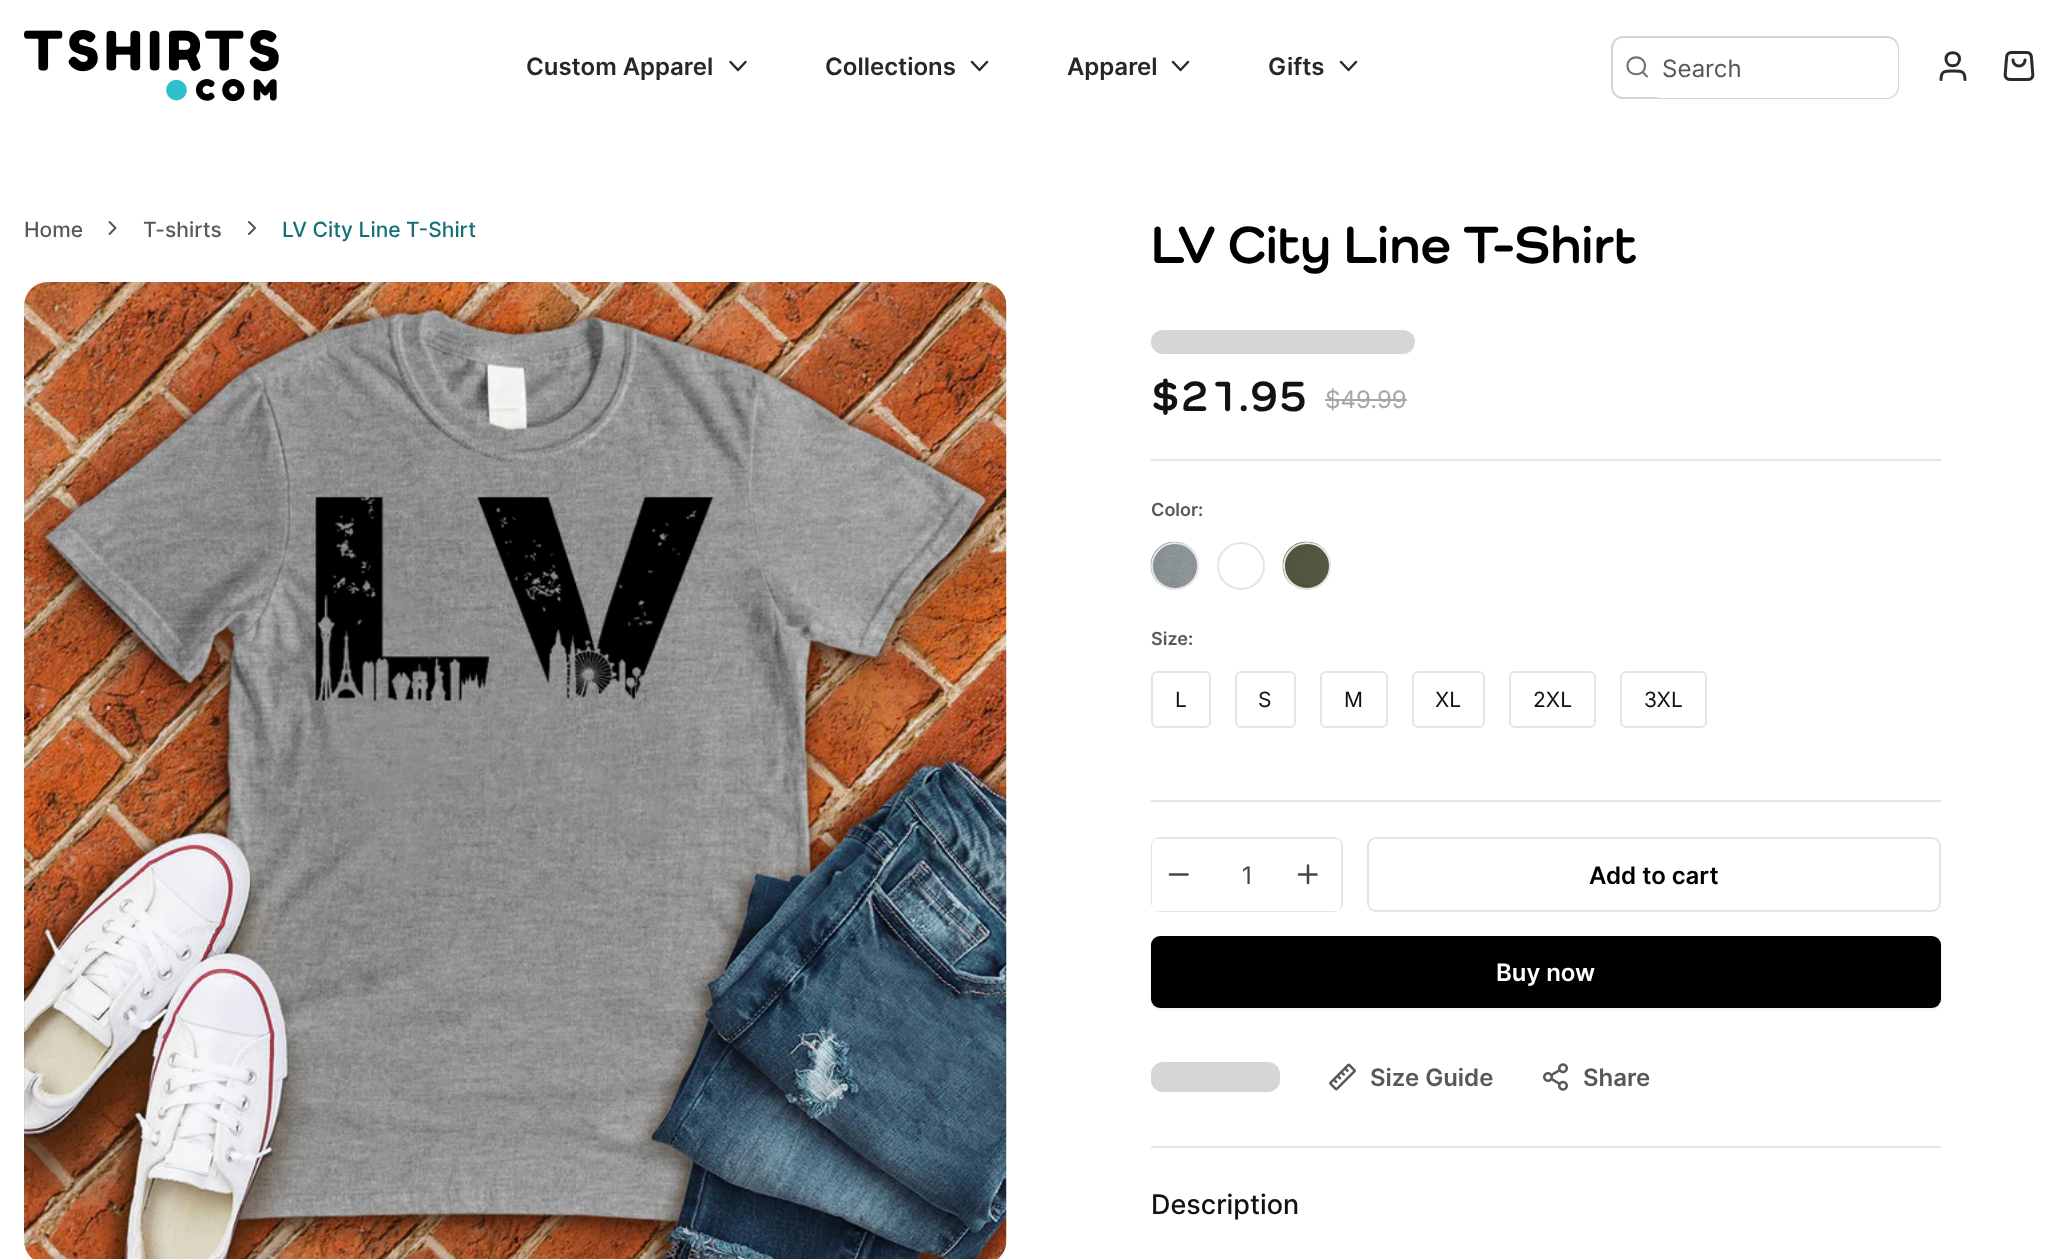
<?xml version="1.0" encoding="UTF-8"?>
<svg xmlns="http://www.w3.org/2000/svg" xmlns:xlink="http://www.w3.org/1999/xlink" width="2061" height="1259">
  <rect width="100%" height="100%" fill="#ffffff" />
  <image x="24" y="30" width="255" height="72" xlink:href="image1.png" />
  <path d="M 730.5 62 l 7.5 8 l 7.5 -8" fill="none" stroke="#2b2b2b" stroke-width="2.5" stroke-linecap="round" stroke-linejoin="round" />
  <path d="M 972 62 l 7.5 8 l 7.5 -8" fill="none" stroke="#2b2b2b" stroke-width="2.5" stroke-linecap="round" stroke-linejoin="round" />
  <path d="M 1173 62 l 7.5 8 l 7.5 -8" fill="none" stroke="#2b2b2b" stroke-width="2.5" stroke-linecap="round" stroke-linejoin="round" />
  <path d="M 1341 62 l 7.5 8 l 7.5 -8" fill="none" stroke="#2b2b2b" stroke-width="2.5" stroke-linecap="round" stroke-linejoin="round" />
  <rect x="1612" y="37" width="286" height="61" rx="11" fill="none" stroke="#d6d6d6" stroke-width="2" />
  <path d="M 1647 76.5 l -4.5 -4.5 m 2.5 -6 c 0 11 -17.5 11 -17.5 0 c 0 -11.5 17.5 -11.5 17.5 0 z" fill="none" stroke="#737373" stroke-width="2.1" stroke-linecap="round" stroke-linejoin="round" />
  <rect x="1650" y="38" width="248" height="60" rx="12" fill="#ffffff" />
  <path d="M 1965 79.5 c 0 -9 -4.5 -8.5 -12 -8.5 c -7.5 0 -12 -0.5 -12 8.5 m 18.5 -20.5 c 0 9 -13.5 9 -13.5 0 c 0 -8.5 13.5 -8.5 13.5 0 z" fill="none" stroke="#2b2b2b" stroke-width="3" stroke-linecap="round" stroke-linejoin="round" />
  <image x="2003" y="51" width="32" height="30" xlink:href="image2.png" />
  <path d="M 109.5 234 l 6 -6 l -6 -6" fill="none" stroke="#4b5563" stroke-width="2" stroke-linecap="round" stroke-linejoin="round" />
  <path d="M 249 234 l 6 -6 l -6 -6" fill="none" stroke="#4b5563" stroke-width="2" stroke-linecap="round" stroke-linejoin="round" />
  <image x="24" y="282" width="983" height="977" xlink:href="image3.png" />
  <rect x="1151" y="330" width="264" height="24" rx="12" fill="#d6d6d6" />
  <rect x="1325" y="399" width="82" height="2" fill="#a7a7a7" />
  <rect x="1151" y="459" width="790" height="2" fill="#e5e5e5" />
  <image x="1150" y="541" width="49" height="49" xlink:href="image4.png" />
  <circle cx="1175" cy="566" r="23" fill="none" stroke="#e5e5e5" stroke-width="2" />
  <circle cx="1241" cy="566" r="23" fill="none" stroke="#e5e5e5" stroke-width="2" />
  <image x="1282" y="541" width="49" height="49" xlink:href="image5.png" />
  <circle cx="1307" cy="566" r="23" fill="none" stroke="#e5e5e5" stroke-width="2" />
  <rect x="1152" y="672" width="58" height="55" rx="5" fill="none" stroke="#e5e5e5" stroke-width="2" />
  <rect x="1236" y="672" width="59" height="55" rx="5" fill="none" stroke="#e5e5e5" stroke-width="2" />
  <rect x="1321" y="672" width="66" height="55" rx="5" fill="none" stroke="#e5e5e5" stroke-width="2" />
  <rect x="1413" y="672" width="71" height="55" rx="5" fill="none" stroke="#e5e5e5" stroke-width="2" />
  <rect x="1510" y="672" width="85" height="55" rx="5" fill="none" stroke="#e5e5e5" stroke-width="2" />
  <rect x="1621" y="672" width="85" height="55" rx="5" fill="none" stroke="#e5e5e5" stroke-width="2" />
  <rect x="1151" y="800" width="790" height="2" fill="#e5e5e5" />
  <rect x="1151" y="1146" width="790" height="2" fill="#e5e5e5" />
  <rect x="1152" y="838" width="190" height="73" rx="8" fill="none" stroke="#e5e5e5" stroke-width="2" />
  <path d="M 1158 839 h 54 v 72 h -54 c -3.5 0 -6 -2.5 -6 -6 v -60 c 0 -3.5 2.5 -6 6 -6 z" fill="#ffffff" />
  <path d="M 1170 874.5 h 17.5" fill="none" stroke="#454545" stroke-width="2.5" stroke-linecap="round" stroke-linejoin="round" />
  <rect x="1212" y="910" width="69" height="1" fill="#ffffff" />
  <path d="M 1281 839 h 54 c 3.5 0 6 2.5 6 6 v 60 c 0 3.5 -2.5 6 -6 6 h -54 z" fill="#ffffff" />
  <path d="M 1308 865.5 v 17.5 m -9 -8.5 h 17.5" fill="none" stroke="#454545" stroke-width="2.5" stroke-linecap="round" stroke-linejoin="round" />
  <rect x="1368" y="838" width="572" height="73" rx="8" fill="none" stroke="#e5e5e5" stroke-width="2" />
  <rect x="1151" y="938" width="790" height="72" rx="9" fill="#000000" fill-opacity="0.05" filter="blur(1.5px)" />
  <rect x="1151" y="936" width="790" height="72" rx="9" fill="#000000" />
  <rect x="1151" y="1062" width="129" height="30" rx="12" fill="#d6d6d6" />
  <image x="1329" y="1063" width="27" height="28" xlink:href="image6.png" />
  <image x="1543" y="1063" width="25" height="28" xlink:href="image7.png" />
  <text x="526" y="75" style="font-family: Inter; font-size: 24px; font-weight: 600; fill: #27272a">Custom Apparel</text>
  <text x="825" y="75" style="font-family: Inter; font-size: 24px; font-weight: 600; fill: #27272a">Collections</text>
  <text x="1067" y="75" style="font-family: Inter; font-size: 24px; font-weight: 600; fill: #27272a">Apparel</text>
  <text x="1268" y="75" style="font-family: Inter; font-size: 24px; font-weight: 600; fill: #27272a">Gifts</text>
  <text x="1662" y="77" style="font-family: Inter; font-size: 24px; fill: #585858">Search</text>
  <text x="24" y="237" style="font-family: Inter; font-size: 21px; font-weight: 500; fill: #585858">Home</text>
  <text x="143" y="237" style="font-family: Inter; font-size: 21px; font-weight: 500; fill: #585858">T-shirts</text>
  <text x="282" y="237" style="font-family: Inter; font-size: 21px; font-weight: 500; fill: #137077">LV City Line T-Shirt</text>
  <text x="1151" y="263" style="font-family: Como; font-size: 54px; font-weight: bold; fill: #000000">LV City Line T-Shirt</text>
  <text x="1151" y="411" style="font-family: Como; font-size: 45px; font-weight: bold; fill: #121212">$21.95</text>
  <text x="1325" y="408" style="font-family: Inter; font-size: 24px; fill: #a7a7a7">$49.99</text>
  <text x="1151" y="516" style="font-family: Inter; font-size: 18px; font-weight: 600; fill: #585858">Color:</text>
  <text x="1151" y="645" style="font-family: Inter; font-size: 18px; font-weight: 600; fill: #585858">Size:</text>
  <text x="1175" y="707" style="font-family: Inter; font-size: 21px; fill: #121212">L</text>
  <text x="1258" y="707" style="font-family: Inter; font-size: 21px; fill: #121212">S</text>
  <text x="1344" y="707" style="font-family: Inter; font-size: 21px; fill: #121212">M</text>
  <text x="1435" y="707" style="font-family: Inter; font-size: 21px; fill: #121212">XL</text>
  <text x="1533" y="707" style="font-family: Inter; font-size: 21px; fill: #121212">2XL</text>
  <text x="1644" y="707" style="font-family: Inter; font-size: 21px; fill: #121212">3XL</text>
  <text x="1242" y="884" style="font-family: Inter; font-size: 24px; fill: #454545">1</text>
  <text x="1589" y="884" style="font-family: Inter; font-size: 24px; font-weight: 600; fill: #000000">Add to cart</text>
  <text x="1496" y="981" style="font-family: Inter; font-size: 24px; font-weight: 600; fill: #ffffff">Buy now</text>
  <text x="1370" y="1086" style="font-family: Inter; font-size: 24px; font-weight: 600; fill: #585858">Size Guide</text>
  <text x="1583" y="1086" style="font-family: Inter; font-size: 24px; font-weight: 600; fill: #585858">Share</text>
  <text x="1151" y="1214" style="font-family: Inter; font-size: 27px; font-weight: 500; fill: #121212">Description</text>
</svg>
